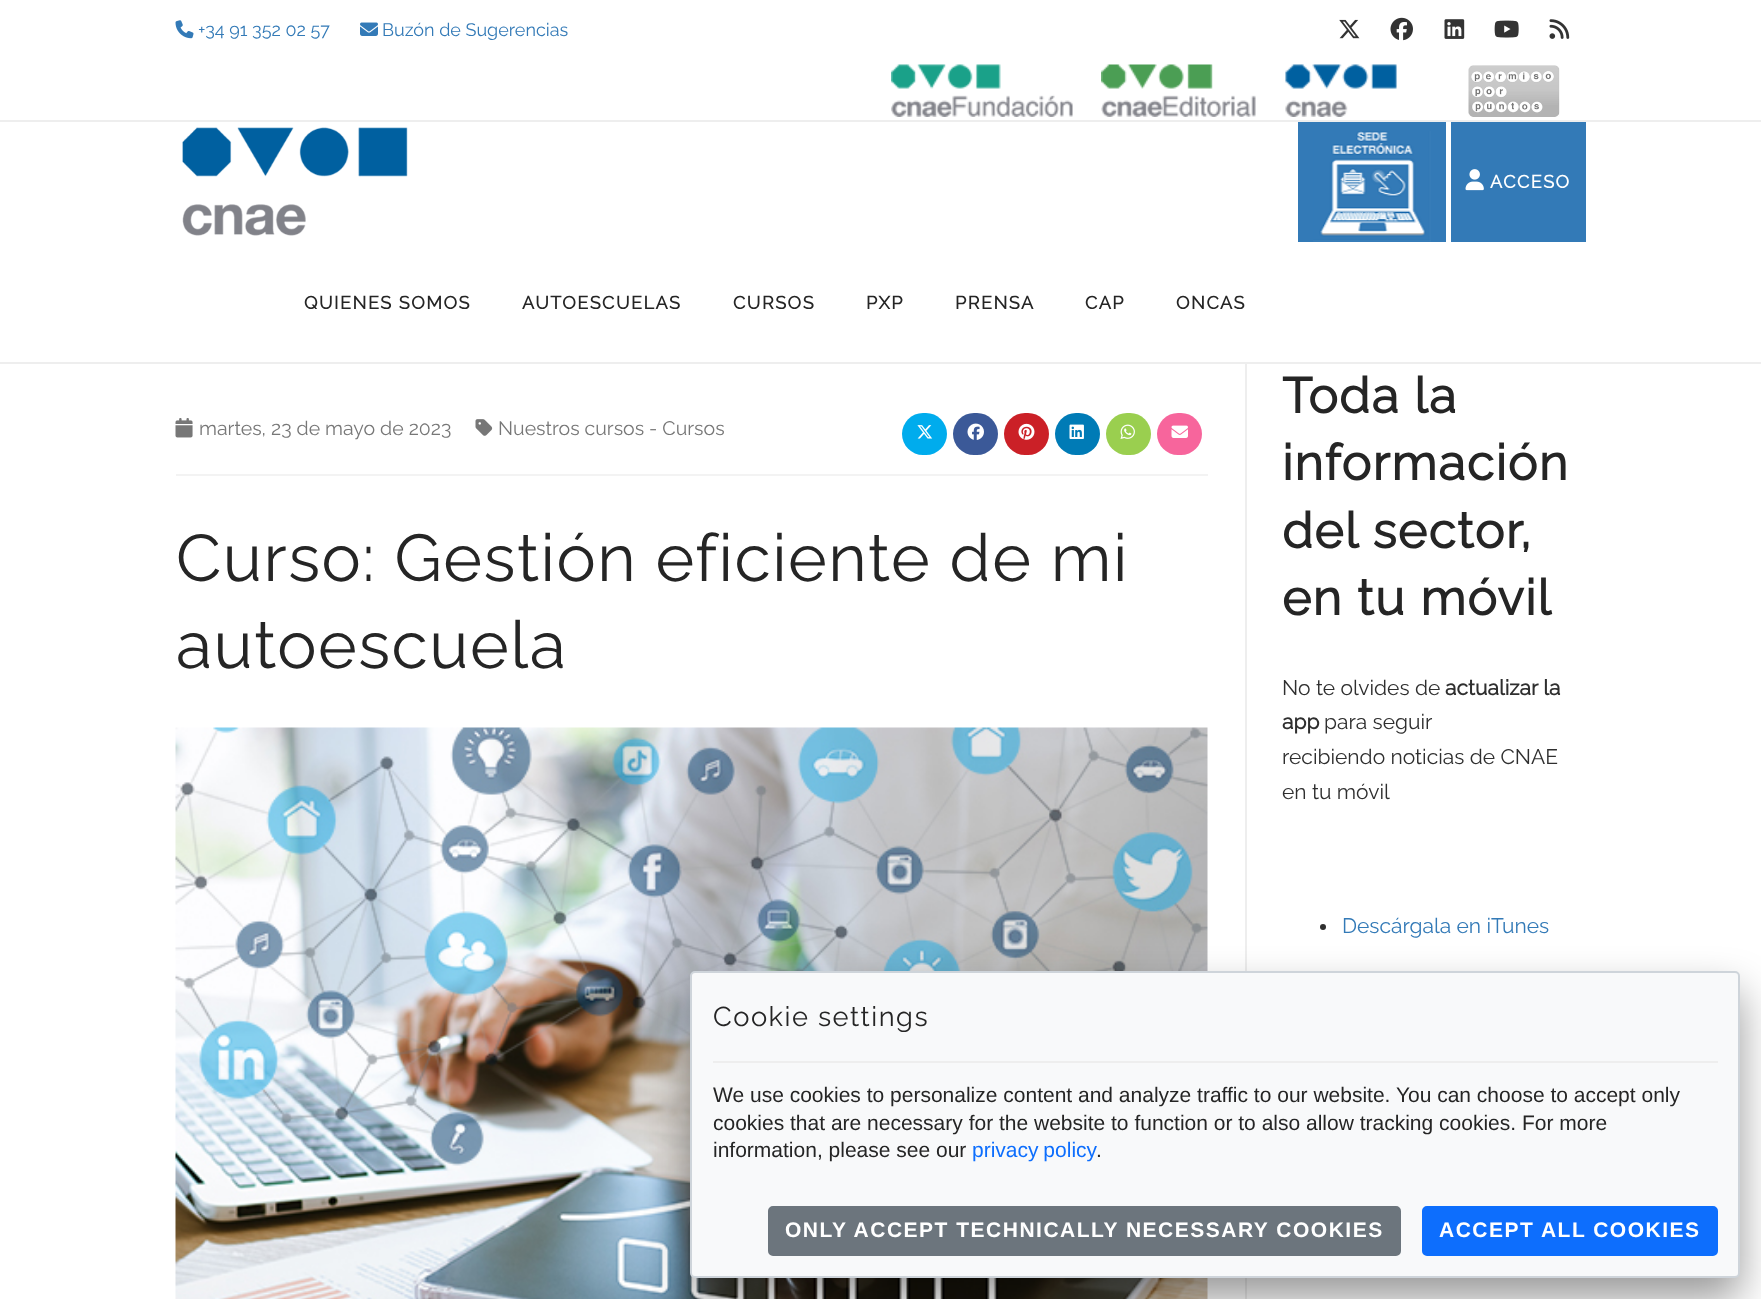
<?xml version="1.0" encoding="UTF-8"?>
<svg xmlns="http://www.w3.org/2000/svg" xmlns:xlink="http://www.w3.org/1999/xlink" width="1761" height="1299">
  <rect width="100%" height="100%" fill="#ffffff" />
  <rect y="120" width="1761" height="2" fill="#eeeeee" />
  <image x="175" y="20" width="19" height="19" xlink:href="image1.png" />
  <image x="360" y="22" width="18" height="14" xlink:href="image2.png" />
  <image x="1339" y="19" width="21" height="20" xlink:href="image3.png" />
  <image x="1390" y="17" width="23" height="24" xlink:href="image4.png" />
  <image x="1444" y="19" width="21" height="20" xlink:href="image5.png" />
  <image x="1494" y="20" width="25" height="18" xlink:href="image6.png" />
  <image x="1549" y="19" width="21" height="20" xlink:href="image7.png" />
  <image x="891" y="64" width="182" height="53" xlink:href="image8.png" />
  <image x="1101" y="64" width="155" height="53" xlink:href="image9.png" />
  <image x="1285" y="64" width="112" height="53" xlink:href="image10.png" />
  <image x="1468" y="65" width="92" height="52" xlink:href="image11.png" />
  <rect x="1245" y="362" width="2" height="937" fill="#eeeeee" />
  <rect y="362" width="1761" height="2" fill="#eeeeee" />
  <image x="182" y="127" width="226" height="109" xlink:href="image12.png" />
  <rect x="1298" y="122" width="148" height="120" fill="#337ab7" />
  <image x="1313" y="131" width="118" height="111" xlink:href="image13.png" />
  <rect x="1451" y="122" width="135" height="120" fill="#337ab7" />
  <image x="1465" y="169" width="19" height="22" xlink:href="image14.png" />
  <rect x="176" y="474" width="1032" height="2" fill="#f3f3f3" />
  <image x="175" y="418" width="18" height="20" xlink:href="image15.png" />
  <image x="475" y="419" width="18" height="17" xlink:href="image16.png" />
  <rect x="902" y="413" width="45" height="42" rx="21" fill="#00aced" />
  <image x="917" y="425" width="16" height="14" xlink:href="image17.png" />
  <rect x="953" y="413" width="45" height="42" rx="21" fill="#3b5998" />
  <image x="967" y="423" width="17" height="17" xlink:href="image18.png" />
  <rect x="1004" y="413" width="45" height="42" rx="21" fill="#cb2027" />
  <image x="1018" y="423" width="17" height="17" xlink:href="image19.png" />
  <rect x="1055" y="413" width="45" height="42" rx="21" fill="#007bb6" />
  <image x="1069" y="424" width="15" height="15" xlink:href="image20.png" />
  <rect x="1106" y="413" width="45" height="42" rx="21" fill="#9acf4f" />
  <image x="1120" y="424" width="15" height="15" xlink:href="image21.png" />
  <rect x="1157" y="413" width="45" height="42" rx="21" fill="#f7659c" />
  <image x="1171" y="425" width="17" height="13" xlink:href="image22.png" />
  <image x="175" y="727" width="1033" height="572" xlink:href="image23.png" />
  <circle cx="1323" cy="927" r="3" fill="#2f2f2f" />
  <rect x="690" y="992" width="1050" height="307" rx="5" fill="#000000" fill-opacity="0.4" filter="blur(21px)" />
  <rect x="691" y="972" width="1048" height="305" rx="4" fill="#f8f9fa" stroke="#ced4da" stroke-width="2" />
  <rect x="713" y="1061" width="1005" height="2" fill="#eeeeee" />
  <rect x="769" y="1207" width="631" height="48" rx="4" fill="#6c757d" stroke="#6c757d" stroke-width="2" />
  <rect x="1423" y="1207" width="294" height="48" rx="4" fill="#0d6efd" stroke="#0d6efd" stroke-width="2" />
  <text x="198" y="36" style="font-family: Raleway; font-size: 18px; font-weight: 100; fill: #337ab7">+34 91 352 02 57</text>
  <text x="382" y="36" style="font-family: Raleway; font-size: 18px; font-weight: 100; fill: #337ab7">Buzón de Sugerencias</text>
  <text x="1490" y="188" style="font-family: Raleway; font-size: 18px; font-weight: bold; letter-spacing: 1.5px; fill: #ffffff">ACCESO</text>
  <text x="304" y="309" style="font-family: Raleway; font-size: 18px; font-weight: bold; letter-spacing: 1.5px; fill: #252525">QUIENES SOMOS</text>
  <text x="522" y="309" style="font-family: Raleway; font-size: 18px; font-weight: bold; letter-spacing: 1.5px; fill: #252525">AUTOESCUELAS</text>
  <text x="733" y="309" style="font-family: Raleway; font-size: 18px; font-weight: bold; letter-spacing: 1.5px; fill: #252525">CURSOS</text>
  <text x="866" y="309" style="font-family: Raleway; font-size: 18px; font-weight: bold; letter-spacing: 1.5px; fill: #252525">PXP</text>
  <text x="955" y="309" style="font-family: Raleway; font-size: 18px; font-weight: bold; letter-spacing: 1.5px; fill: #252525">PRENSA</text>
  <text x="1085" y="309" style="font-family: Raleway; font-size: 18px; font-weight: bold; letter-spacing: 1.5px; fill: #252525">CAP</text>
  <text x="1176" y="309" style="font-family: Raleway; font-size: 18px; font-weight: bold; letter-spacing: 1.5px; fill: #252525">ONCAS</text>
  <text x="199" y="435" style="font-family: Raleway; font-size: 19.5px; font-weight: 100; fill: #777777">martes, 23 de mayo de 2023</text>
  <text x="498" y="435" style="font-family: Raleway; font-size: 19.5px; font-weight: 100; fill: #777777">Nuestros cursos - Cursos</text>
  <text x="176" y="581" style="font-family: Raleway; font-size: 66px; font-weight: 100; letter-spacing: 1.5px; fill: #252525">Curso: Gestión eficiente de mi</text>
  <text x="176" y="668" style="font-family: Raleway; font-size: 66px; font-weight: 100; letter-spacing: 1.5px; fill: #252525">autoescuela</text>
  <text x="1282" y="413" style="font-family: Raleway; font-size: 49.5px; font-weight: bold; letter-spacing: 1.5px; fill: #252525">Toda la</text>
  <text x="1282" y="480" style="font-family: Raleway; font-size: 49.5px; font-weight: bold; letter-spacing: 1.5px; fill: #252525">información</text>
  <text x="1282" y="548" style="font-family: Raleway; font-size: 49.5px; font-weight: bold; letter-spacing: 1.5px; fill: #252525">del sector,</text>
  <text x="1282" y="615" style="font-family: Raleway; font-size: 49.5px; font-weight: bold; letter-spacing: 1.5px; fill: #252525">en tu móvil</text>
  <text x="1282" y="695" style="font-family: Raleway; font-size: 21px; font-weight: 100; fill: #2f2f2f">No te olvides de</text>
  <text x="1445" y="695" style="font-family: Raleway; font-size: 21px; font-weight: bold; fill: #2f2f2f">actualizar la</text>
  <text x="1282" y="729" style="font-family: Raleway; font-size: 21px; font-weight: bold; fill: #2f2f2f">app</text>
  <text x="1324" y="729" style="font-family: Raleway; font-size: 21px; font-weight: 100; fill: #2f2f2f">para seguir</text>
  <text x="1282" y="764" style="font-family: Raleway; font-size: 21px; font-weight: 100; fill: #2f2f2f">recibiendo noticias de CNAE</text>
  <text x="1282" y="799" style="font-family: Raleway; font-size: 21px; font-weight: 100; fill: #2f2f2f">en tu móvil</text>
  <text x="1342" y="933" style="font-family: Raleway; font-size: 21px; font-weight: 100; fill: #337ab7">Descárgala en iTunes</text>
  <text x="713" y="1026" style="font-family: Raleway; font-size: 27.25px; font-weight: 100; letter-spacing: 1.5px; fill: #252525">Cookie settings</text>
  <text x="713" y="1102" style="font-family: Liberation Sans; font-size: 21px; fill: #252525">We use cookies to personalize content and analyze traffic to our website. You can choose to accept only</text>
  <text x="713" y="1130" style="font-family: Liberation Sans; font-size: 21px; fill: #252525">cookies that are necessary for the website to function or to also allow tracking cookies. For more</text>
  <text x="713" y="1157" style="font-family: Liberation Sans; font-size: 21px; fill: #252525">information, please see our</text>
  <text x="972" y="1157" word-spacing="-1" style="font-family: Liberation Sans; font-size: 21px; fill: #0d6efd">privacy policy</text>
  <text x="1096" y="1157" style="font-family: Liberation Sans; font-size: 21px; fill: #252525">.</text>
  <text x="785" y="1237" style="font-family: Liberation Sans; font-size: 21px; font-weight: bold; letter-spacing: 1.5px; fill: #ffffff">ONLY ACCEPT TECHNICALLY NECESSARY COOKIES</text>
  <text x="1439" y="1237" style="font-family: Liberation Sans; font-size: 21px; font-weight: bold; letter-spacing: 1.5px; fill: #ffffff">ACCEPT ALL COOKIES</text>
</svg>
